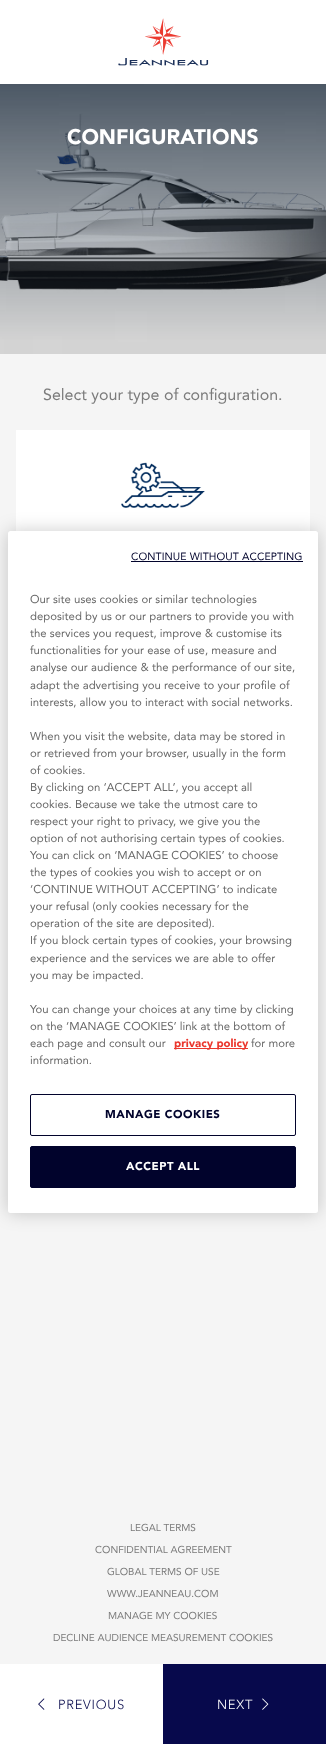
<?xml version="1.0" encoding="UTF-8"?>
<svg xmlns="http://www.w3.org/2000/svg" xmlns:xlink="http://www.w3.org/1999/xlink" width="326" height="1744">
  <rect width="100%" height="100%" fill="#f5f5f5" />
  <rect width="326" height="84" fill="#ffffff" />
  <image x="118" y="18" width="91" height="48" xlink:href="image1.png" />
  <image x="0" y="84" width="326" height="270" xlink:href="image2.png" />
  <rect x="16" y="430" width="294" height="101" fill="#ffffff" />
  <image x="121" y="462" width="84" height="46" xlink:href="image3.png" />
  <rect x="163" y="1664" width="163" height="80" fill="#07094c" />
  <image x="262" y="1698" width="7" height="12" xlink:href="image4.png" />
  <rect y="1664" width="163" height="80" fill="#ffffff" />
  <image x="38" y="1698" width="7" height="12" xlink:href="image5.png" />
  <rect x="8" y="531" width="310" height="682" rx="2.5" fill="#000000" fill-opacity="0.2" filter="blur(9px)" />
  <rect x="8" y="531" width="310" height="682" rx="2.5" fill="#ffffff" />
  <rect x="131" y="561" width="172" height="1" fill="#01032c" />
  <rect x="174" y="1048" width="74" height="1" fill="#eb372e" />
  <rect x="30.5" y="1094.5" width="265" height="41" rx="1.5" fill="none" stroke="#01032c" />
  <rect x="30.5" y="1146.5" width="265" height="41" rx="1.5" fill="#01032c" stroke="#01032c" />
  <text x="67" y="144" style="font-family: Avenir; font-size: 21px; font-weight: 900; fill: #ffffff">CONFIGURATIONS</text>
  <text x="43" y="400" style="font-family: Avenir; font-size: 16px; fill: #7b7b7b">Select your type of configuration.</text>
  <text x="217" y="1709" style="font-family: Avenir; font-size: 13px; font-weight: 300; letter-spacing: 0.75px; fill: #ffffff">NEXT</text>
  <text x="58" y="1709" style="font-family: Avenir; font-size: 13px; font-weight: 300; letter-spacing: 0.75px; fill: #07094c">PREVIOUS</text>
  <text x="131" y="560" style="font-family: Avenir; font-size: 10.5px; letter-spacing: 0.1px; fill: #01032c">CONTINUE WITHOUT ACCEPTING</text>
  <text x="30" y="603" style="font-family: Avenir; font-size: 11.4px; fill: #696969">Our site uses cookies or similar technologies</text>
  <text x="30" y="620" style="font-family: Avenir; font-size: 11.4px; fill: #696969">deposited by us or our partners to provide you with</text>
  <text x="30" y="637" style="font-family: Avenir; font-size: 11.4px; fill: #696969">the services you request, improve &amp; customise its</text>
  <text x="30" y="654" style="font-family: Avenir; font-size: 11.4px; fill: #696969">functionalities for your ease of use, measure and</text>
  <text x="30" y="671" style="font-family: Avenir; font-size: 11.4px; fill: #696969">analyse our audience &amp; the performance of our site,</text>
  <text x="30" y="689" style="font-family: Avenir; font-size: 11.4px; fill: #696969">adapt the advertising you receive to your profile of</text>
  <text x="30" y="706" style="font-family: Avenir; font-size: 11.4px; fill: #696969">interests, allow you to interact with social networks.</text>
  <text x="30" y="740" style="font-family: Avenir; font-size: 11.4px; fill: #696969">When you visit the website, data may be stored in</text>
  <text x="30" y="757" style="font-family: Avenir; font-size: 11.4px; fill: #696969">or retrieved from your browser, usually in the form</text>
  <text x="30" y="774" style="font-family: Avenir; font-size: 11.4px; fill: #696969">of cookies.</text>
  <text x="30" y="791" style="font-family: Avenir; font-size: 11.4px; fill: #696969">By clicking on ‘ACCEPT ALL’, you accept all</text>
  <text x="30" y="808" style="font-family: Avenir; font-size: 11.4px; fill: #696969">cookies. Because we take the utmost care to</text>
  <text x="30" y="825" style="font-family: Avenir; font-size: 11.4px; fill: #696969">respect your right to privacy, we give you the</text>
  <text x="30" y="842" style="font-family: Avenir; font-size: 11.4px; fill: #696969">option of not authorising certain types of cookies.</text>
  <text x="30" y="859" style="font-family: Avenir; font-size: 11.4px; fill: #696969">You can click on ‘MANAGE COOKIES’ to choose</text>
  <text x="30" y="876" style="font-family: Avenir; font-size: 11.4px; fill: #696969">the types of cookies you wish to accept or on</text>
  <text x="30" y="893" style="font-family: Avenir; font-size: 11.4px; fill: #696969">‘CONTINUE WITHOUT ACCEPTING’ to indicate</text>
  <text x="30" y="910" style="font-family: Avenir; font-size: 11.4px; fill: #696969">your refusal (only cookies necessary for the</text>
  <text x="30" y="927" style="font-family: Avenir; font-size: 11.4px; fill: #696969">operation of the site are deposited).</text>
  <text x="30" y="944" style="font-family: Avenir; font-size: 11.4px; fill: #696969">If you block certain types of cookies, your browsing</text>
  <text x="30" y="962" style="font-family: Avenir; font-size: 11.4px; fill: #696969">experience and the services we are able to offer</text>
  <text x="30" y="979" style="font-family: Avenir; font-size: 11.4px; fill: #696969">you may be impacted.</text>
  <text x="30" y="1013" style="font-family: Avenir; font-size: 11.4px; fill: #696969">You can change your choices at any time by clicking</text>
  <text x="30" y="1030" style="font-family: Avenir; font-size: 11.4px; fill: #696969">on the ‘MANAGE COOKIES’ link at the bottom of</text>
  <text x="30" y="1047" style="font-family: Avenir; font-size: 11.4px; fill: #696969">each page and consult our</text>
  <text x="174" y="1047" style="font-family: Avenir; font-size: 11.4px; font-weight: 900; fill: #eb372e">privacy policy</text>
  <text x="251" y="1047" style="font-family: Avenir; font-size: 11.4px; fill: #696969">for more</text>
  <text x="30" y="1064" style="font-family: Avenir; font-size: 11.4px; fill: #696969">information.</text>
  <text x="105" y="1118" style="font-family: Avenir; font-size: 11.4px; font-weight: 900; letter-spacing: 0.5px; fill: #01032c">MANAGE COOKIES</text>
  <text x="126" y="1170" style="font-family: Avenir; font-size: 11.4px; font-weight: 900; letter-spacing: 0.5px; fill: #ffffff">ACCEPT ALL</text>
  <text x="130" y="1531" style="font-family: Avenir; font-size: 10px; fill: #7b7b7b">LEGAL TERMS</text>
  <text x="95" y="1553" style="font-family: Avenir; font-size: 10px; fill: #7b7b7b">CONFIDENTIAL AGREEMENT</text>
  <text x="107" y="1575" style="font-family: Avenir; font-size: 10px; fill: #7b7b7b">GLOBAL TERMS OF USE</text>
  <text x="107" y="1597" style="font-family: Avenir; font-size: 10px; fill: #7b7b7b">WWW.JEANNEAU.COM</text>
  <text x="108" y="1619" style="font-family: Avenir; font-size: 10px; fill: #7b7b7b">MANAGE MY COOKIES</text>
  <text x="53" y="1641" style="font-family: Avenir; font-size: 10px; fill: #7b7b7b">DECLINE AUDIENCE MEASUREMENT COOKIES</text>
</svg>
